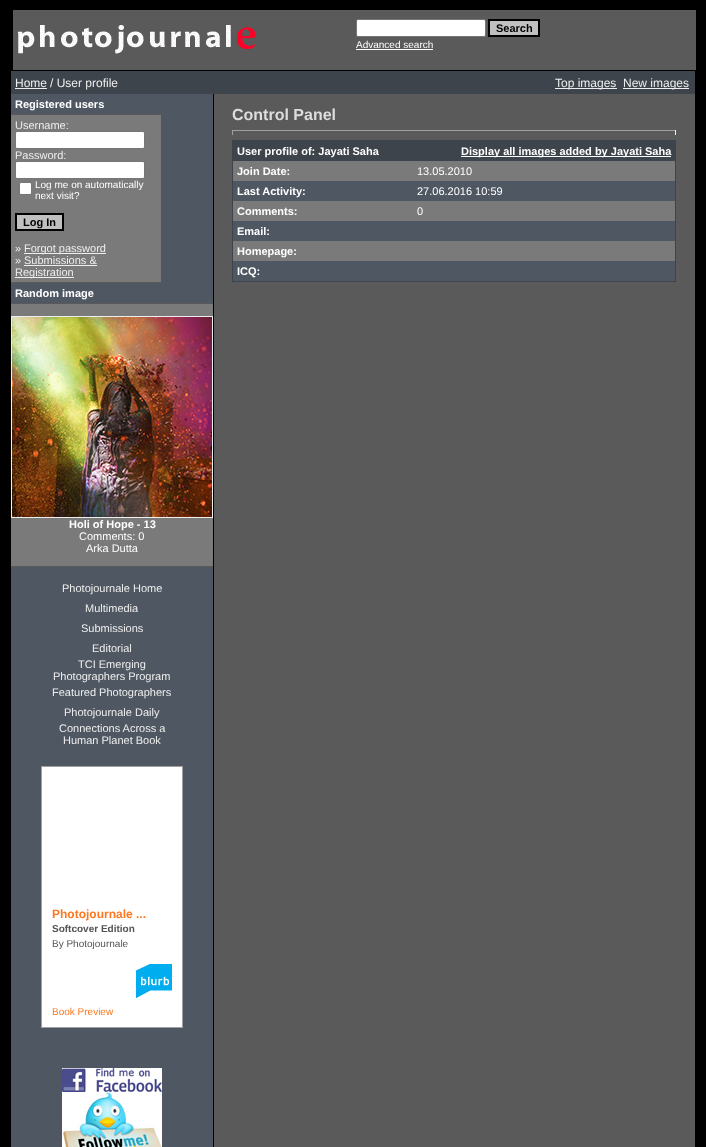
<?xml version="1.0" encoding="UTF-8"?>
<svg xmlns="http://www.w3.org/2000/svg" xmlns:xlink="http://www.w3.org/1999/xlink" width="706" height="1147">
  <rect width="100%" height="100%" fill="#000000" />
  <rect x="13" y="10" width="683" height="60" fill="#5a5a5a" />
  <image x="18" y="25" width="238" height="29" xlink:href="image1.png" />
  <rect x="356.5" y="19.5" width="129" height="17" rx="1.5" fill="#ffffff" stroke="#767676" />
  <rect x="489" y="20" width="50" height="16" fill="#c0c0c0" stroke="#000000" stroke-width="2" />
  <rect x="356" y="49" width="77" height="1" fill="#ffffff" />
  <rect x="214" y="94" width="481" height="1053" fill="#5a5a5a" />
  <rect x="11" y="71" width="684" height="23" fill="#3d444b" />
  <rect x="15" y="88" width="32" height="1" fill="#eeeeee" />
  <rect x="555" y="88" width="62" height="1" fill="#eeeeee" />
  <rect x="623" y="88" width="66" height="1" fill="#eeeeee" />
  <rect x="11" y="94" width="202" height="1053" fill="#4f5862" />
  <rect x="11" y="114" width="150" height="1" fill="#5a5a5a" />
  <rect x="11" y="115" width="150" height="167" fill="#7a7a7a" />
  <rect x="15.5" y="131.5" width="129" height="17" rx="1.5" fill="#ffffff" stroke="#767676" />
  <rect x="15.5" y="161.5" width="129" height="17" rx="1.5" fill="#ffffff" stroke="#767676" />
  <rect x="19.5" y="182.5" width="12" height="12" rx="1.5" fill="#ffffff" stroke="#767676" />
  <rect x="16" y="214" width="47" height="16" fill="#c0c0c0" stroke="#000000" stroke-width="2" />
  <rect x="24" y="253" width="82" height="1" fill="#eeeeee" />
  <rect x="24" y="265" width="73" height="1" fill="#eeeeee" />
  <rect x="15" y="277" width="59" height="1" fill="#eeeeee" />
  <rect x="11" y="282" width="150" height="1" fill="#5a5a5a" />
  <rect x="11" y="303" width="202" height="1" fill="#5a5a5a" />
  <rect x="11" y="304" width="202" height="262" fill="#7a7a7a" />
  <rect x="11.5" y="316.5" width="201" height="201" fill="none" stroke="#eeeeee" />
  <image x="12" y="317" width="200" height="200" xlink:href="image2.png" />
  <rect x="11" y="566" width="202" height="1" fill="#5a5a5a" />
  <rect x="41.5" y="766.5" width="141" height="261" fill="#ffffff" stroke="#a0a0a0" />
  <image x="136" y="964" width="36" height="34" xlink:href="image3.png" />
  <image x="62" y="1068" width="100" height="24" xlink:href="image4.png" />
  <image x="62" y="1092" width="100" height="55" xlink:href="image5.png" />
  <rect x="232" y="130" width="444" height="1" fill="#9f9f9f" />
  <rect x="675" y="130" width="1" height="5" fill="#eeeeee" />
  <rect x="232" y="130" width="1" height="5" fill="#9f9f9f" />
  <rect x="232" y="140" width="444" height="142" fill="#3d444b" />
  <rect x="461" y="156" width="210" height="1" fill="#ffffff" />
  <rect x="233" y="161" width="442" height="20" fill="#7a7a7a" />
  <rect x="233" y="181" width="442" height="20" fill="#4f5862" />
  <rect x="233" y="201" width="442" height="20" fill="#7a7a7a" />
  <rect x="233" y="221" width="442" height="20" fill="#4f5862" />
  <rect x="233" y="241" width="442" height="20" fill="#7a7a7a" />
  <rect x="233" y="261" width="442" height="20" fill="#4f5862" />
  <text x="496" y="32" style="font-family: Liberation Sans; font-size: 11px; font-weight: bold; fill: #000000">Search</text>
  <text x="356" y="48" style="font-family: Liberation Sans; font-size: 10px; fill: #ffffff">Advanced search</text>
  <text x="15" y="87" style="font-family: Liberation Sans; font-size: 12px; fill: #eeeeee">Home</text>
  <text x="50" y="87" style="font-family: Liberation Sans; font-size: 12px; fill: #eeeeee">/ User profile</text>
  <text x="555" y="87" style="font-family: Liberation Sans; font-size: 12px; fill: #eeeeee">Top images</text>
  <text x="623" y="87" style="font-family: Liberation Sans; font-size: 12px; fill: #eeeeee">New images</text>
  <text x="15" y="108" style="font-family: Liberation Sans; font-size: 11px; font-weight: bold; fill: #ffffff">Registered users</text>
  <text x="15" y="129" style="font-family: Liberation Sans; font-size: 11px; fill: #eeeeee">Username:</text>
  <text x="15" y="159" style="font-family: Liberation Sans; font-size: 11px; fill: #eeeeee">Password:</text>
  <text x="35" y="188" style="font-family: Liberation Sans; font-size: 10px; fill: #ffffff">Log me on automatically</text>
  <text x="35" y="199" style="font-family: Liberation Sans; font-size: 10px; fill: #ffffff">next visit?</text>
  <text x="23" y="226" style="font-family: Liberation Sans; font-size: 11px; font-weight: bold; fill: #000000">Log In</text>
  <text x="15" y="252" style="font-family: Liberation Sans; font-size: 11px; fill: #eeeeee">»</text>
  <text x="24" y="252" style="font-family: Liberation Sans; font-size: 11px; fill: #eeeeee">Forgot password</text>
  <text x="15" y="264" style="font-family: Liberation Sans; font-size: 11px; fill: #eeeeee">»</text>
  <text x="24" y="264" style="font-family: Liberation Sans; font-size: 11px; fill: #eeeeee">Submissions &amp;</text>
  <text x="15" y="276" style="font-family: Liberation Sans; font-size: 11px; fill: #eeeeee">Registration</text>
  <text x="15" y="297" style="font-family: Liberation Sans; font-size: 11px; font-weight: bold; fill: #ffffff">Random image</text>
  <text x="69" y="528" style="font-family: Liberation Sans; font-size: 11px; font-weight: bold; fill: #ffffff">Holi of Hope - 13</text>
  <text x="79" y="540" style="font-family: Liberation Sans; font-size: 11px; fill: #ffffff">Comments: 0</text>
  <text x="86" y="552" style="font-family: Liberation Sans; font-size: 11px; fill: #ffffff">Arka Dutta</text>
  <text x="62" y="592" style="font-family: Liberation Sans; font-size: 11px; fill: #eeeeee">Photojournale Home</text>
  <text x="85" y="612" style="font-family: Liberation Sans; font-size: 11px; fill: #eeeeee">Multimedia</text>
  <text x="81" y="632" style="font-family: Liberation Sans; font-size: 11px; fill: #eeeeee">Submissions</text>
  <text x="92" y="652" style="font-family: Liberation Sans; font-size: 11px; fill: #eeeeee">Editorial</text>
  <text x="78" y="668" style="font-family: Liberation Sans; font-size: 11px; fill: #eeeeee">TCI Emerging</text>
  <text x="53" y="680" style="font-family: Liberation Sans; font-size: 11px; fill: #eeeeee">Photographers Program</text>
  <text x="52" y="696" style="font-family: Liberation Sans; font-size: 11px; fill: #eeeeee">Featured Photographers</text>
  <text x="64" y="716" style="font-family: Liberation Sans; font-size: 11px; fill: #eeeeee">Photojournale Daily</text>
  <text x="59" y="732" style="font-family: Liberation Sans; font-size: 11px; fill: #eeeeee">Connections Across a</text>
  <text x="63" y="744" style="font-family: Liberation Sans; font-size: 11px; fill: #eeeeee">Human Planet Book</text>
  <text x="52" y="918" style="font-family: Liberation Sans; font-size: 12px; font-weight: bold; fill: #fd7820">Photojournale ...</text>
  <text x="52" y="932" style="font-family: Liberation Sans; font-size: 10px; font-weight: bold; fill: #545454">Softcover Edition</text>
  <text x="52" y="947" style="font-family: Liberation Sans; font-size: 10px; fill: #545454">By Photojournale</text>
  <text x="52" y="1015" style="font-family: Liberation Sans; font-size: 10px; fill: #fd7820">Book Preview</text>
  <text x="232" y="120" style="font-family: Liberation Sans; font-size: 16px; font-weight: bold; fill: #dddddd">Control Panel</text>
  <text x="237" y="155" style="font-family: Liberation Sans; font-size: 11px; font-weight: bold; fill: #ffffff">User profile of: Jayati Saha</text>
  <text x="461" y="155" style="font-family: Liberation Sans; font-size: 11px; font-weight: bold; fill: #ffffff">Display all images added by Jayati Saha</text>
  <text x="237" y="175" style="font-family: Liberation Sans; font-size: 11px; font-weight: bold; fill: #ffffff">Join Date:</text>
  <text x="417" y="175" style="font-family: Liberation Sans; font-size: 11px; fill: #ffffff">13.05.2010</text>
  <text x="237" y="195" style="font-family: Liberation Sans; font-size: 11px; font-weight: bold; fill: #ffffff">Last Activity:</text>
  <text x="417" y="195" style="font-family: Liberation Sans; font-size: 11px; fill: #ffffff">27.06.2016 10:59</text>
  <text x="237" y="215" style="font-family: Liberation Sans; font-size: 11px; font-weight: bold; fill: #ffffff">Comments:</text>
  <text x="417" y="215" style="font-family: Liberation Sans; font-size: 11px; fill: #ffffff">0</text>
  <text x="237" y="235" style="font-family: Liberation Sans; font-size: 11px; font-weight: bold; fill: #ffffff">Email:</text>
  <text x="237" y="255" style="font-family: Liberation Sans; font-size: 11px; font-weight: bold; fill: #ffffff">Homepage:</text>
  <text x="237" y="275" style="font-family: Liberation Sans; font-size: 11px; font-weight: bold; fill: #ffffff">ICQ:</text>
</svg>
